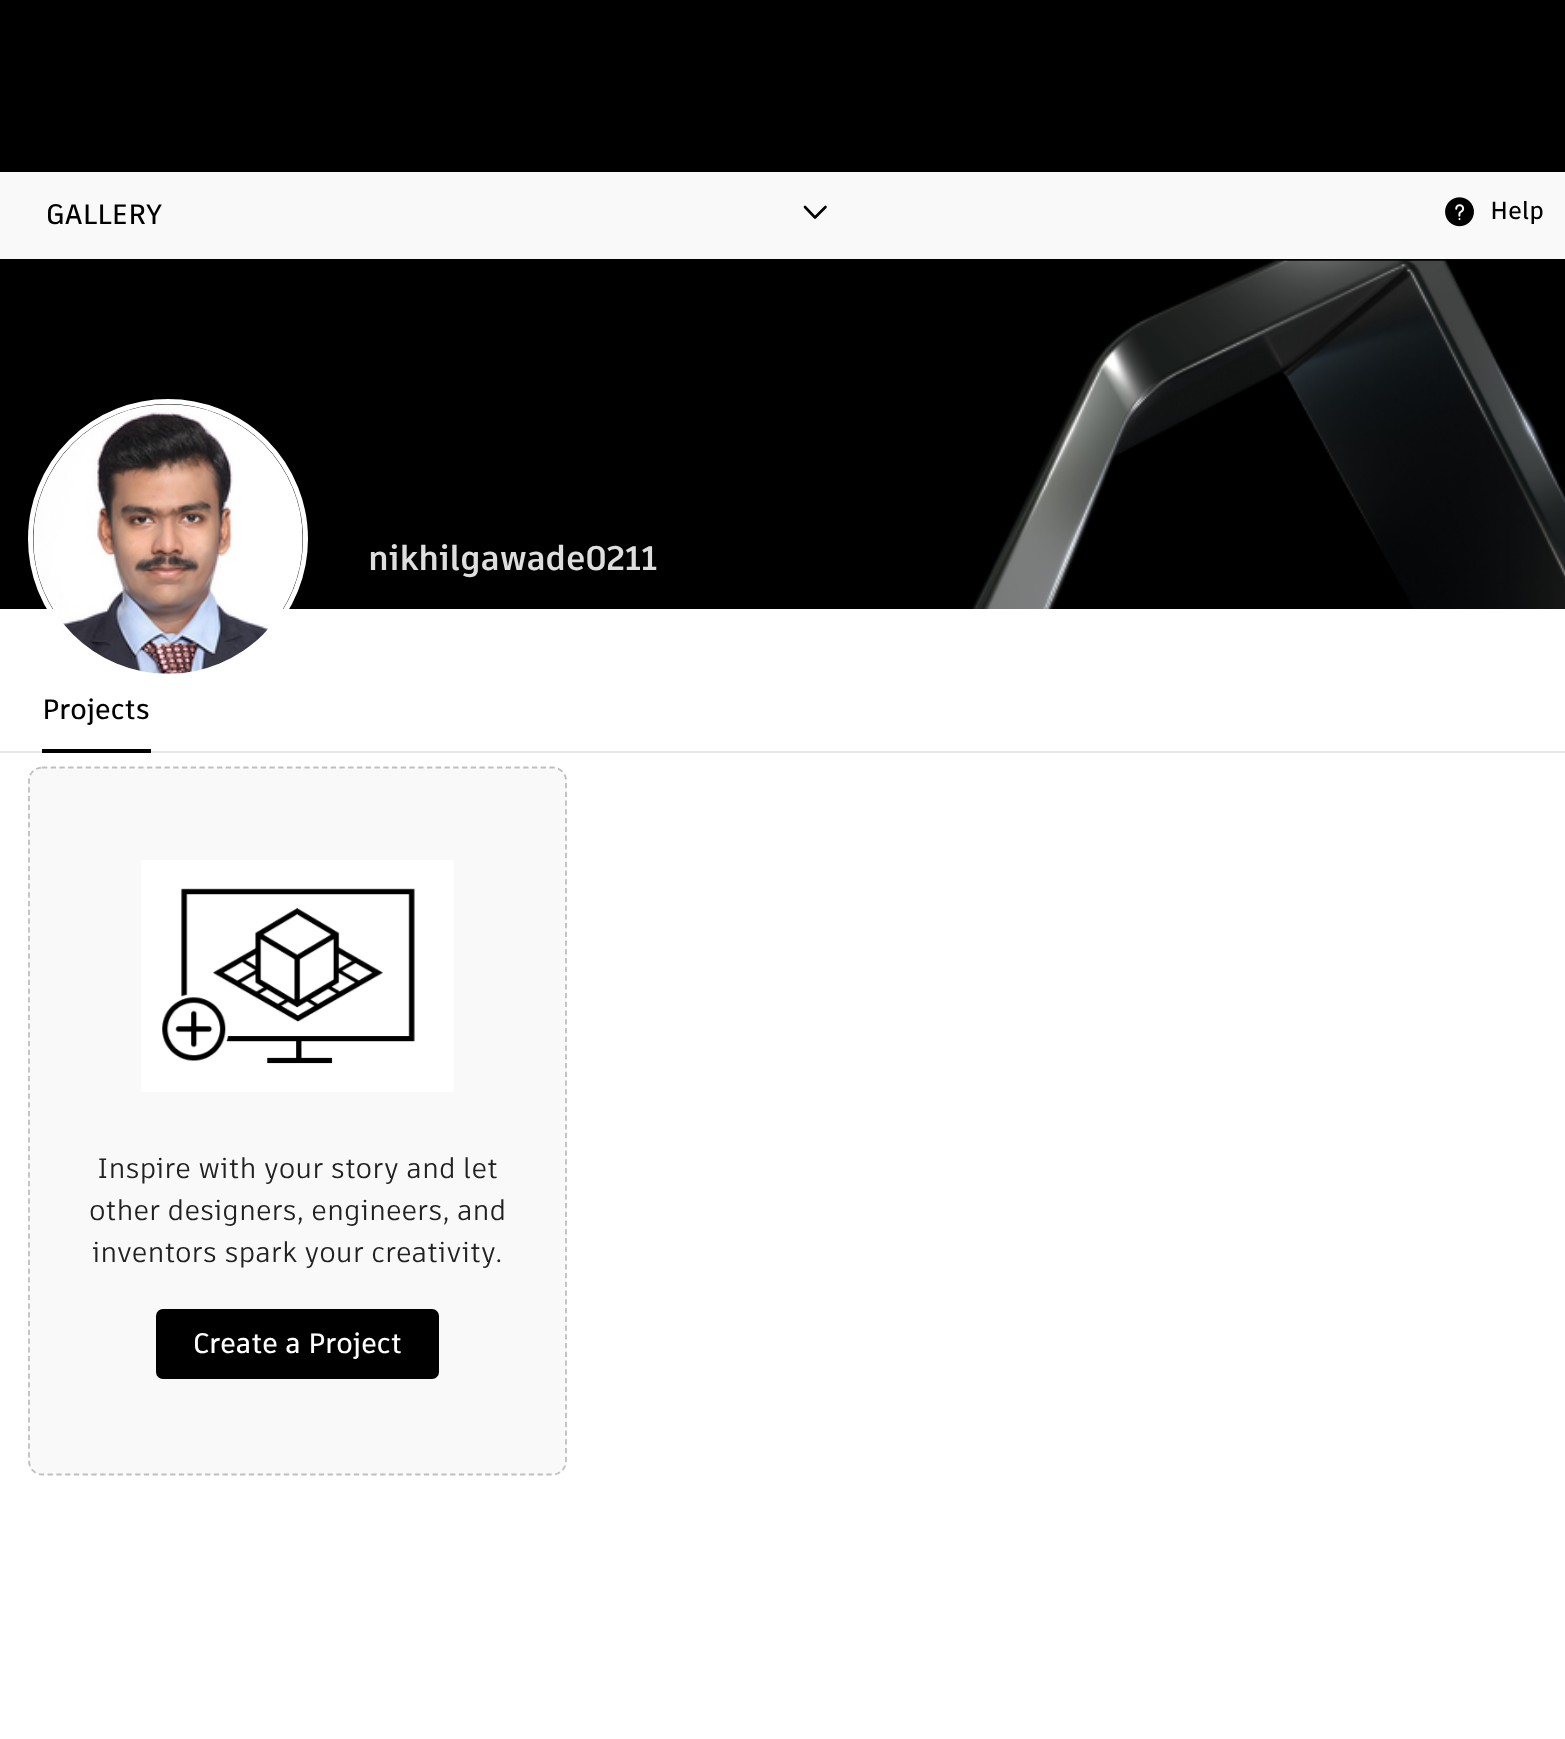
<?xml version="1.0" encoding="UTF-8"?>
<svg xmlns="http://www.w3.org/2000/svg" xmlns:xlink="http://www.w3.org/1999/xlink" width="1565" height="1739">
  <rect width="100%" height="100%" fill="#ffffff" />
  <rect width="1565" height="172" fill="#000000" />
  <rect y="172" width="1565" height="87" fill="#f9f9f9" />
  <path d="M 825.5 207 l -10.5 10.5 l -10 -10.5" fill="none" stroke="#000000" stroke-width="2.6" stroke-linecap="round" stroke-linejoin="round" />
  <image x="1445" y="197" width="29" height="30" xlink:href="image1.png" />
  <rect y="259" width="1565" height="350" fill="#000000" />
  <circle cx="168" cy="539" r="137.5" fill="none" stroke="#ffffff" stroke-width="5" />
  <image x="33" y="404" width="270" height="270" xlink:href="image2.png" />
  <image x="972" y="260" width="593" height="349" xlink:href="image3.png" />
  <rect y="751" width="1565" height="2" fill="#e6e6e6" />
  <rect x="42" y="749" width="109" height="4" fill="#000000" />
  <rect x="28" y="767" width="539" height="708" rx="14" fill="#f9f9f9" />
  <path d="M 42 767.5 h 511 c 7 0 13 6 13 13 v 680.5 c 0 7.5 -6 13.5 -13 13.5 h -511 c -7 0 -13 -6 -13 -13.5 v -680.5 c 0 -7 6 -13 13 -13 z" fill="none" stroke="#bfbfbf" stroke-width="1.8" stroke-dasharray="5.25 3.5" />
  <image x="141" y="860" width="313" height="232" xlink:href="image4.png" />
  <rect x="157" y="1310" width="281" height="68" rx="6" fill="#000000" stroke="#000000" stroke-width="2" />
  <text x="46" y="224" style="font-family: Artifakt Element; font-size: 28px; font-weight: 600; fill: #000000">GALLERY</text>
  <text x="1490" y="219" style="font-family: Artifakt Element; font-size: 24.5px; font-weight: 600; fill: #000000">Help</text>
  <text x="368" y="570" style="font-family: Artifakt Element; font-size: 34px; font-weight: bold; fill: #dedede">nikhilgawade0211</text>
  <text x="42" y="719" style="font-family: Artifakt Element; font-size: 28px; font-weight: 600; fill: #000000">Projects</text>
  <text x="97" y="1178" style="font-family: Artifakt Element; font-size: 28px; fill: #212121">Inspire with your story and let</text>
  <text x="89" y="1220" style="font-family: Artifakt Element; font-size: 28px; fill: #212121">other designers, engineers, and</text>
  <text x="92" y="1262" style="font-family: Artifakt Element; font-size: 28px; fill: #212121">inventors spark your creativity.</text>
  <text x="193" y="1353" style="font-family: Artifakt Element; font-size: 28px; font-weight: 600; fill: #ffffff">Create a Project</text>
</svg>
